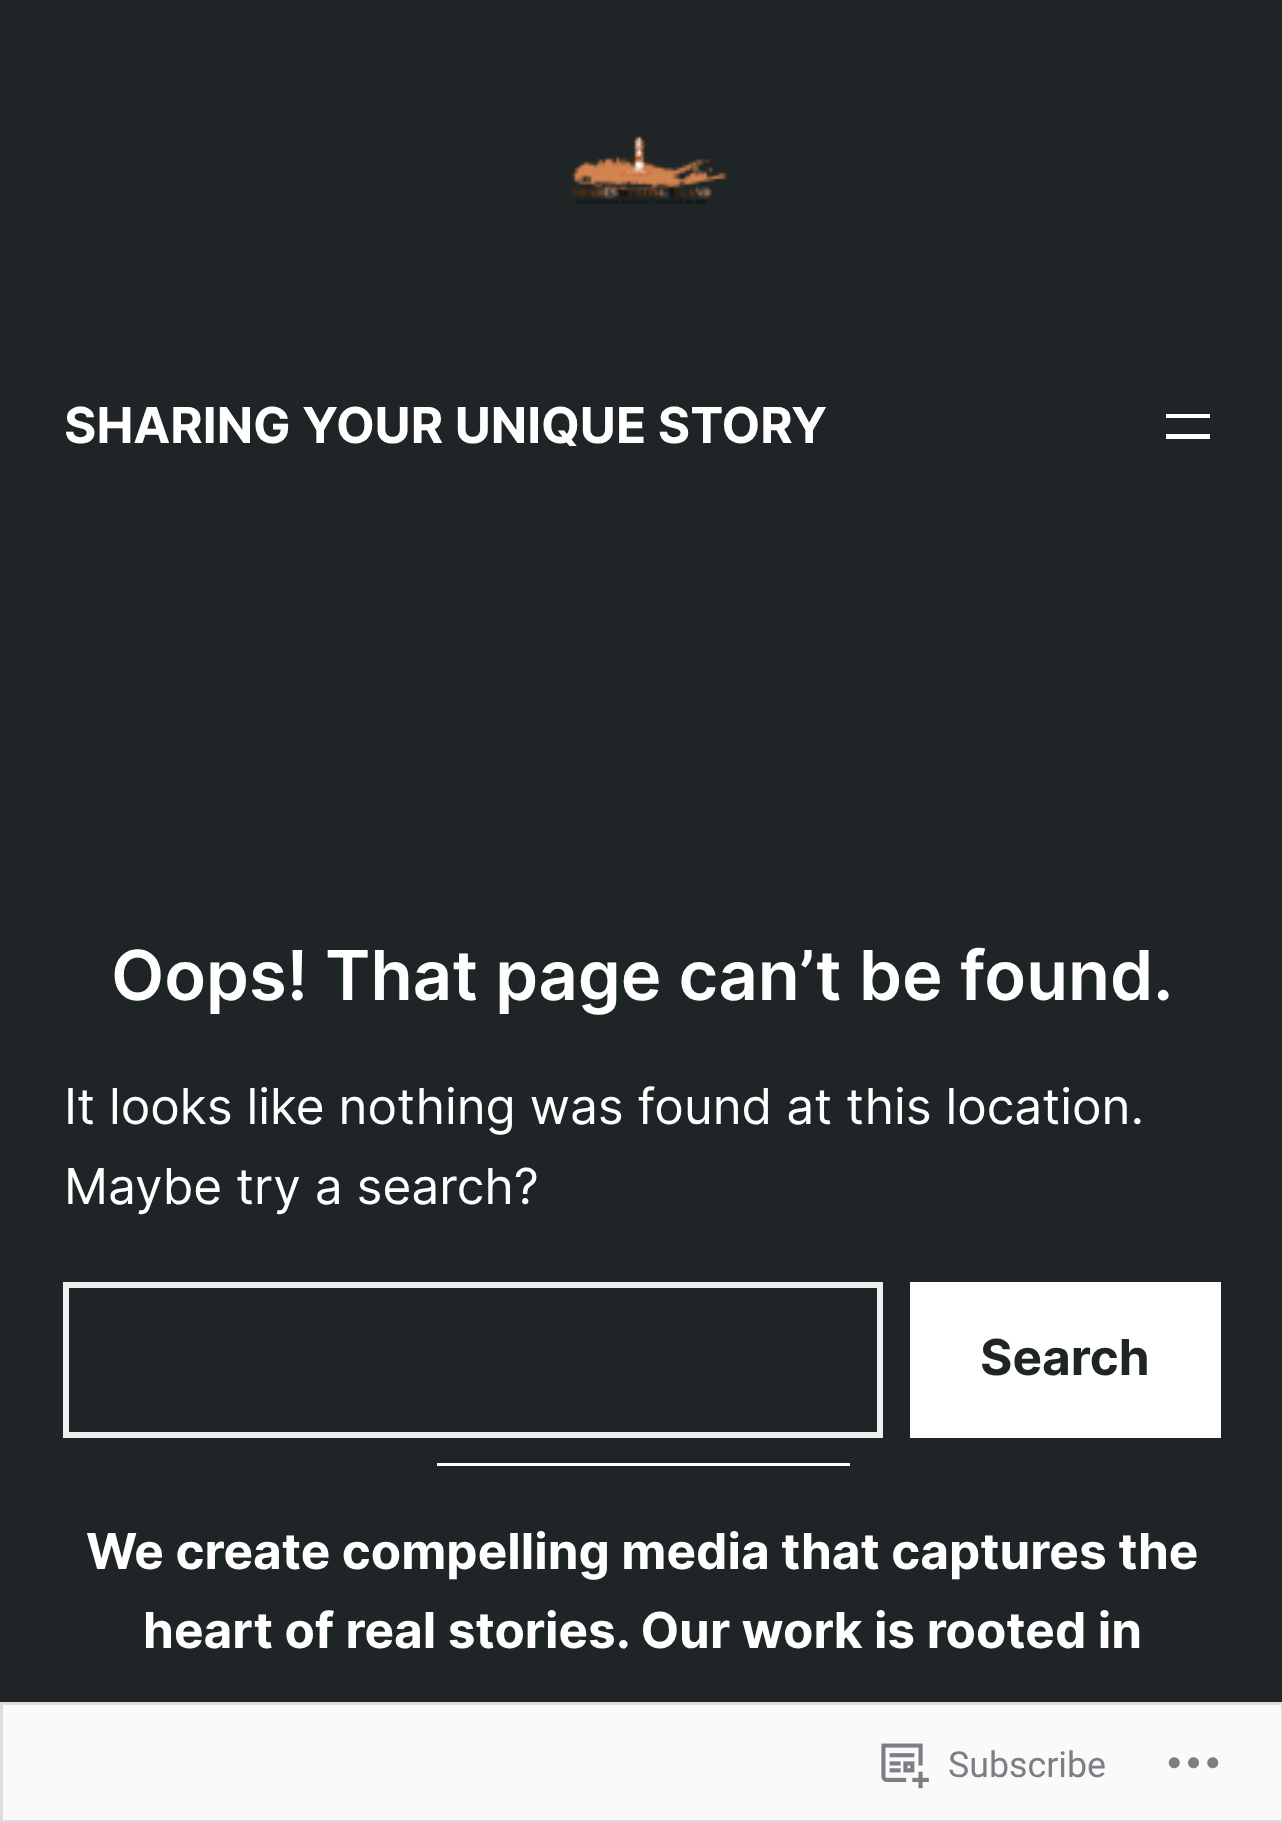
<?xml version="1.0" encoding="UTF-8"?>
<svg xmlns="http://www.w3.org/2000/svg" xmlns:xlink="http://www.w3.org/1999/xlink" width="1282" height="1822">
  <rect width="100%" height="100%" fill="#1f2527" />
  <image x="571" y="134" width="156" height="71" xlink:href="image1.png" />
  <rect x="1166" y="414" width="44" height="4" fill="#ffffff" />
  <rect x="1166" y="434" width="44" height="5" fill="#ffffff" />
  <rect x="66" y="1285" width="814" height="150" fill="none" stroke="#efefef" stroke-width="6" />
  <rect x="910" y="1282" width="311" height="156" fill="#ffffff" />
  <rect x="437" y="1463" width="413" height="3" fill="#ffffff" />
  <rect y="1702" width="1282" height="120" fill="#ffffff" fill-opacity="0.98" />
  <rect x="1.5" y="1703.5" width="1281" height="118" fill="none" stroke="#dcdcde" stroke-opacity="0.98" stroke-width="3" />
  <image x="881" y="1743" width="48" height="46" xlink:href="image2.png" />
  <image x="1168" y="1757" width="51" height="12" xlink:href="image3.png" />
  <text x="64" y="443" style="font-family: Inter; font-size: 49.5px; font-weight: bold; fill: #ffffff">SHARING YOUR UNIQUE STORY</text>
  <text x="111" y="1000" style="font-family: Inter; font-size: 68.75px; font-weight: 600; fill: #ffffff">Oops! That page can’t be found.</text>
  <text x="64" y="1124" style="font-family: Inter; font-size: 49.5px; fill: #ffffff">It looks like nothing was found at this location.</text>
  <text x="64" y="1204" style="font-family: Inter; font-size: 49.5px; fill: #ffffff">Maybe try a search?</text>
  <text x="980" y="1375" style="font-family: Inter; font-size: 49.5px; font-weight: bold; fill: #1f2527">Search</text>
  <text x="86" y="1569" style="font-family: Inter; font-size: 49.5px; font-weight: bold; fill: #ffffff">We create compelling media that captures the</text>
  <text x="143" y="1648" style="font-family: Inter; font-size: 49.5px; font-weight: bold; fill: #ffffff">heart of real stories. Our work is rooted in</text>
  <text x="948" y="1777" style="font-family: Roboto; font-size: 35.75px; fill: #7b7f84">Subscribe</text>
</svg>
